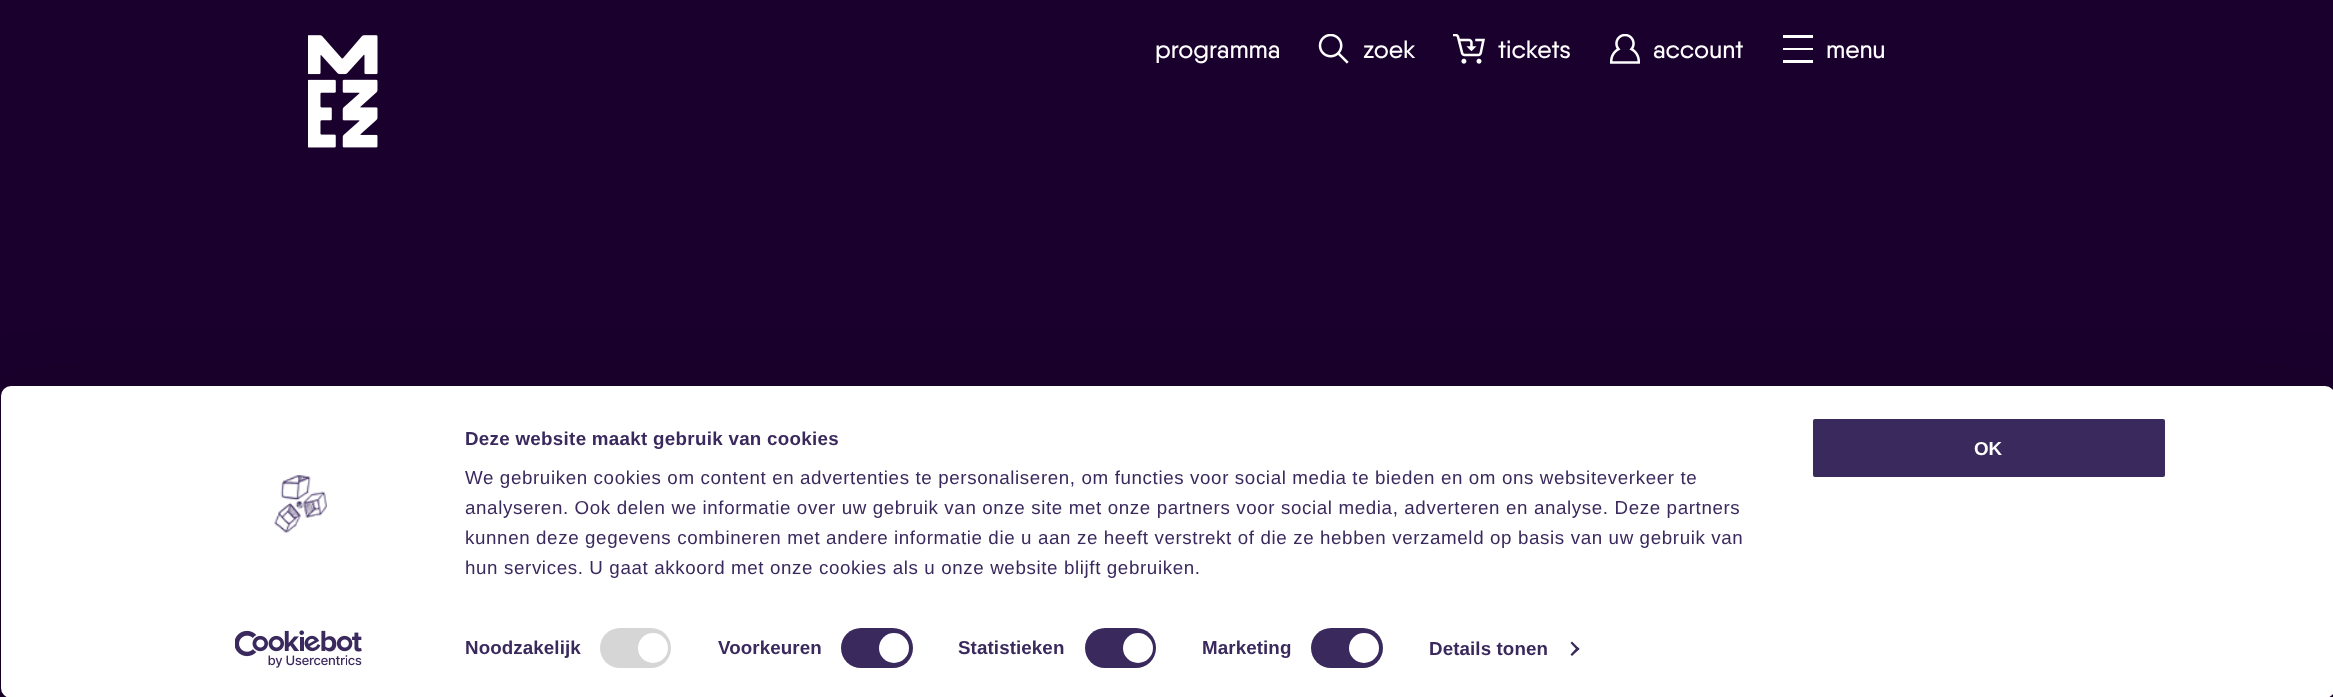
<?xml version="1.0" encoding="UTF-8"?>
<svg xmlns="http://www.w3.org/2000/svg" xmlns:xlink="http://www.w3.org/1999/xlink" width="2333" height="697">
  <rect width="100%" height="100%" fill="#1a002d" />
  <image x="308" y="35" width="70" height="113" xlink:href="image1.png" />
  <image x="1318" y="34" width="31" height="30" xlink:href="image2.png" />
  <image x="1453" y="34" width="32" height="30" xlink:href="image3.png" />
  <image x="1610" y="34" width="30" height="30" xlink:href="image4.png" />
  <rect x="1783" y="35" width="30" height="3" fill="#ffffff" />
  <rect x="1783" y="48" width="30" height="2" fill="#ffffff" />
  <rect x="1783" y="60" width="30" height="3" fill="#ffffff" />
  <rect x="1" y="424" width="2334" height="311" rx="10" fill="#000000" fill-opacity="0.3" filter="blur(44px)" />
  <rect x="1" y="386" width="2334" height="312" rx="10" fill="#ffffff" />
  <rect x="600" y="628" width="71" height="40" rx="20" fill="#d6d6d6" />
  <circle cx="653" cy="648" r="15" fill="#ffffff" />
  <rect x="841" y="628" width="72" height="40" rx="20" fill="#3a295d" />
  <circle cx="894" cy="648" r="15" fill="#ffffff" />
  <rect x="1085" y="628" width="71" height="40" rx="20" fill="#3a295d" />
  <circle cx="1138" cy="648" r="15" fill="#ffffff" />
  <rect x="1311" y="628" width="72" height="40" rx="20" fill="#3a295d" />
  <circle cx="1364" cy="648" r="15" fill="#ffffff" />
  <path d="M 1572 641.5 l 7.5 7.5 l -2 1.5 l -7 -7.5 z" fill="#3a295d" />
  <path d="M 1577.5 647 l 2 2 l -7.5 7 l -1.5 -1.5 z" fill="#3a295d" />
  <rect x="1811.5" y="417.5" width="355" height="61" rx="3.5" fill="#3a295d" stroke="#ffffff" stroke-width="3" />
  <image x="274" y="475" width="53" height="58" xlink:href="image5.png" />
  <image x="235" y="630" width="127" height="38" xlink:href="image6.png" />
  <text x="1155" y="58" style="font-family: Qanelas; font-size: 25px; font-weight: 500; fill: #ffffff">programma</text>
  <text x="1363" y="58" style="font-family: Qanelas; font-size: 25px; font-weight: 500; fill: #ffffff">zoek</text>
  <text x="1498" y="58" style="font-family: Qanelas; font-size: 25px; font-weight: 500; fill: #ffffff">tickets</text>
  <text x="1653" y="58" style="font-family: Qanelas; font-size: 25px; font-weight: 500; fill: #ffffff">account</text>
  <text x="1826" y="58" style="font-family: Qanelas; font-size: 25px; font-weight: 500; fill: #ffffff">menu</text>
  <text x="465" y="445" style="font-family: Liberation Sans; font-size: 18.75px; font-weight: bold; letter-spacing: 0.3px; fill: #3a295d">Deze website maakt gebruik van cookies</text>
  <text x="465" y="484" style="font-family: Liberation Sans; font-size: 18.75px; letter-spacing: 0.62px; fill: #3a295d">We gebruiken cookies om content en advertenties te personaliseren, om functies voor social media te bieden en om ons websiteverkeer te</text>
  <text x="465" y="514" style="font-family: Liberation Sans; font-size: 18.75px; letter-spacing: 0.62px; fill: #3a295d">analyseren. Ook delen we informatie over uw gebruik van onze site met onze partners voor social media, adverteren en analyse. Deze partners</text>
  <text x="465" y="544" style="font-family: Liberation Sans; font-size: 18.75px; letter-spacing: 0.62px; fill: #3a295d">kunnen deze gegevens combineren met andere informatie die u aan ze heeft verstrekt of die ze hebben verzameld op basis van uw gebruik van</text>
  <text x="465" y="574" style="font-family: Liberation Sans; font-size: 18.75px; letter-spacing: 0.62px; fill: #3a295d">hun services. U gaat akkoord met onze cookies als u onze website blijft gebruiken.</text>
  <text x="465" y="654" style="font-family: Liberation Sans; font-size: 18.75px; font-weight: bold; letter-spacing: 0.1px; fill: #3a295d">Noodzakelijk</text>
  <text x="718" y="654" style="font-family: Liberation Sans; font-size: 18.75px; font-weight: bold; letter-spacing: 0.1px; fill: #3a295d">Voorkeuren</text>
  <text x="958" y="654" style="font-family: Liberation Sans; font-size: 18.75px; font-weight: bold; letter-spacing: 0.1px; fill: #3a295d">Statistieken</text>
  <text x="1202" y="654" style="font-family: Liberation Sans; font-size: 18.75px; font-weight: bold; letter-spacing: 0.1px; fill: #3a295d">Marketing</text>
  <text x="1429" y="655" style="font-family: Liberation Sans; font-size: 18.75px; font-weight: bold; letter-spacing: 0.1px; fill: #3a295d">Details tonen</text>
  <text x="1974" y="455" style="font-family: Liberation Sans; font-size: 18.75px; font-weight: bold; fill: #ffffff">OK</text>
</svg>
